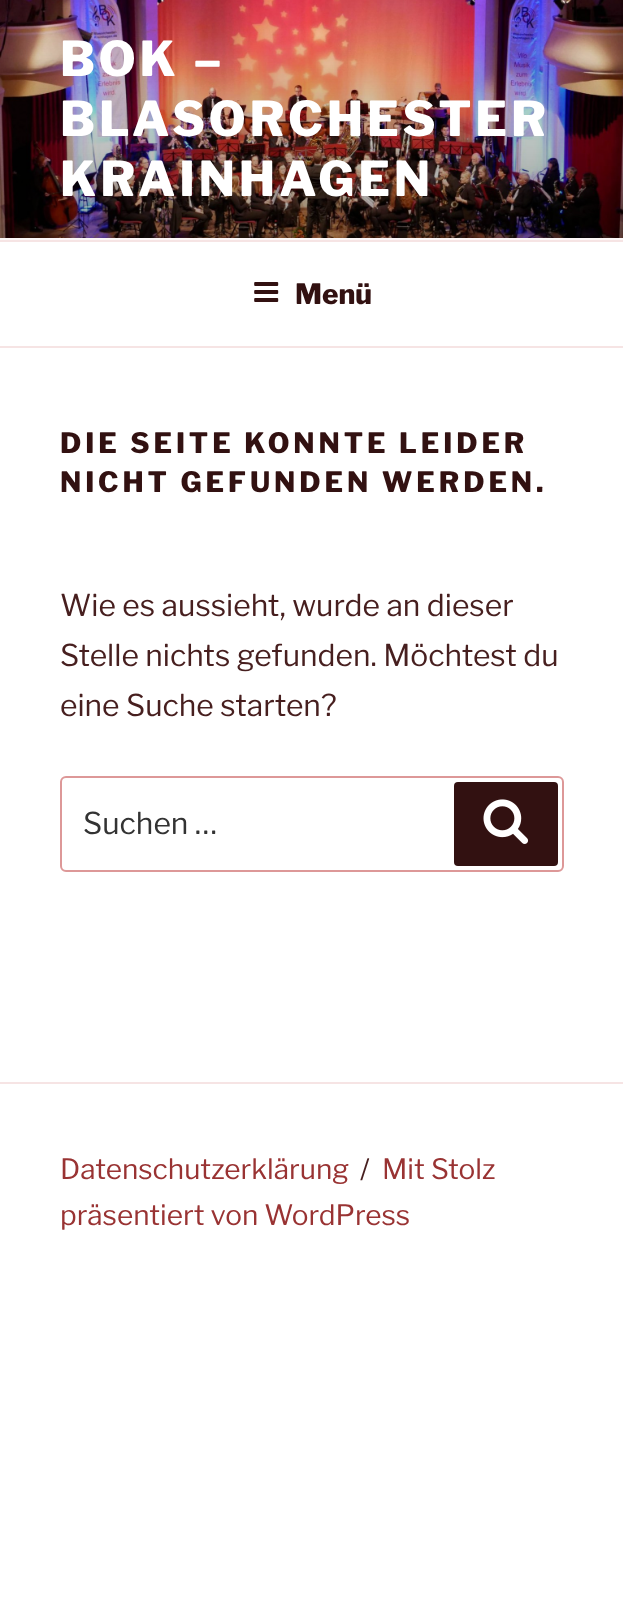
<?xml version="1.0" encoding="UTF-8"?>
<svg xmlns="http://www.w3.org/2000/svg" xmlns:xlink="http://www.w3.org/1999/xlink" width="623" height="1619">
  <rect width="100%" height="100%" fill="#ffffff" />
  <rect y="238" width="623" height="2" fill="#fcf7f7" />
  <image x="0" y="0" width="623" height="238" xlink:href="image1.png" />
  <rect y="240" width="623" height="2" fill="#f6e4e4" />
  <rect y="346" width="623" height="2" fill="#f6e4e4" />
  <image x="254" y="282" width="25" height="20" xlink:href="image2.png" />
  <rect x="61" y="777" width="502" height="94" rx="5" fill="none" stroke="#dd9898" stroke-width="2" />
  <rect x="454" y="782" width="104" height="84" rx="4" fill="#321111" />
  <image x="483" y="799" width="46" height="45" xlink:href="image3.png" />
  <rect y="1082" width="623" height="2" fill="#f6e4e4" />
  <text x="60" y="76" style="font-family: Libre Franklin; font-size: 48px; font-weight: 100; letter-spacing: 3.8px; fill: #ffffff">BOK –</text>
  <text x="60" y="136" style="font-family: Libre Franklin; font-size: 48px; font-weight: 100; letter-spacing: 3.8px; fill: #ffffff">BLASORCHESTER</text>
  <text x="60" y="196" style="font-family: Libre Franklin; font-size: 48px; font-weight: 100; letter-spacing: 3.8px; fill: #ffffff">KRAINHAGEN</text>
  <text x="295" y="304" style="font-family: Libre Franklin; font-size: 28px; font-weight: 100; fill: #321111">Menü</text>
  <text x="60" y="453" style="font-family: Libre Franklin; font-size: 28px; font-weight: 100; letter-spacing: 3.9px; fill: #321111">DIE SEITE KONNTE LEIDER</text>
  <text x="60" y="492" style="font-family: Libre Franklin; font-size: 28px; font-weight: 100; letter-spacing: 3.9px; fill: #321111">NICHT GEFUNDEN WERDEN.</text>
  <text x="60" y="616" style="font-family: 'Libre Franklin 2'; font-size: 30px; font-weight: 100; fill: #471f1f">Wie es aussieht, wurde an dieser</text>
  <text x="60" y="666" style="font-family: 'Libre Franklin 2'; font-size: 30px; font-weight: 100; fill: #471f1f">Stelle nichts gefunden. Möchtest du</text>
  <text x="60" y="716" style="font-family: 'Libre Franklin 2'; font-size: 30px; font-weight: 100; fill: #471f1f">eine Suche starten?</text>
  <text x="83" y="834" style="font-family: 'Libre Franklin 2'; font-size: 30px; font-weight: 100; fill: #333333">Suchen …</text>
  <text x="60" y="1179" style="font-family: 'Libre Franklin 2'; font-size: 28px; font-weight: 100; fill: #993333">Datenschutzerklärung</text>
  <text x="360" y="1179" style="font-family: 'Libre Franklin 2'; font-size: 28px; font-weight: 100; fill: #471f1f">/</text>
  <text x="382" y="1179" style="font-family: 'Libre Franklin 2'; font-size: 28px; font-weight: 100; fill: #993333">Mit Stolz</text>
  <text x="60" y="1225" style="font-family: 'Libre Franklin 2'; font-size: 28px; font-weight: 100; fill: #993333">präsentiert von WordPress</text>
</svg>
